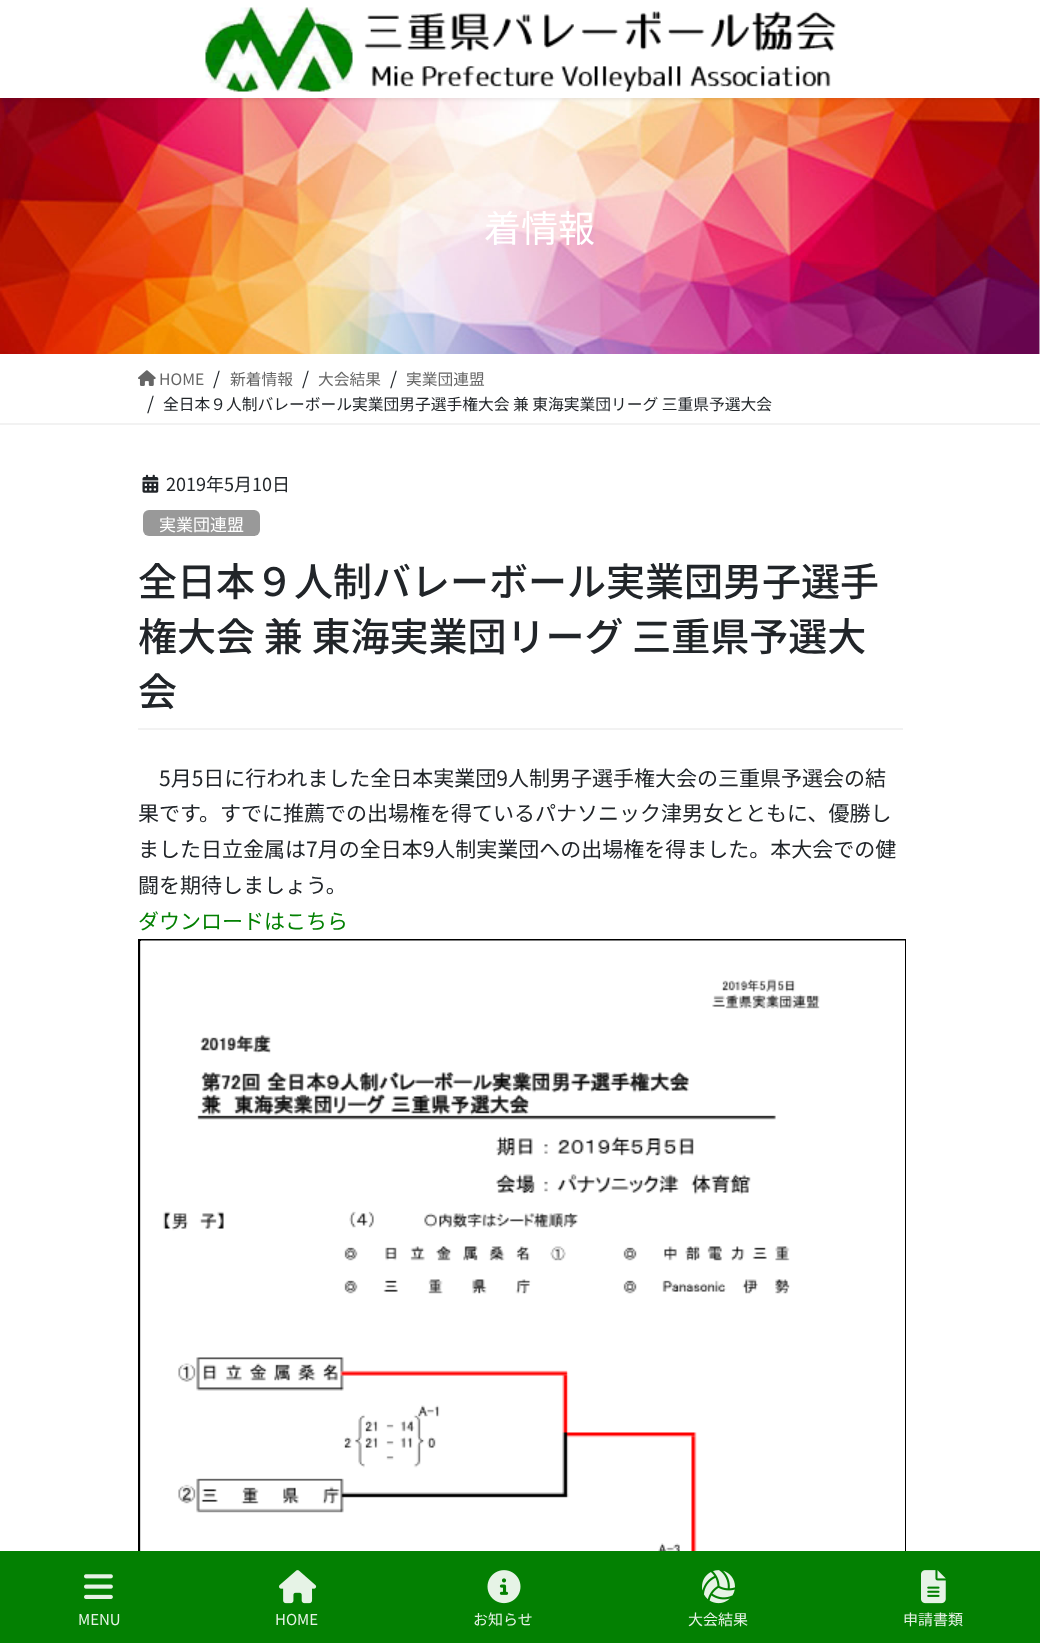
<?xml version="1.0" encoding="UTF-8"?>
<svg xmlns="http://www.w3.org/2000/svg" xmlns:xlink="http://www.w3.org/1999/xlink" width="1040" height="1643">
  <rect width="100%" height="100%" fill="#ffffff" />
  <image x="0" y="98" width="1040" height="256" xlink:href="image2.png" />
  <rect y="2" width="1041" height="97" fill="#000000" fill-opacity="0.1" filter="blur(2px)" />
  <rect width="1040" height="98" fill="#ffffff" />
  <image x="205" y="7" width="631" height="85" xlink:href="image1.png" />
  <rect y="423" width="1040" height="2" fill="#f2f2f2" />
  <image x="138" y="370" width="18" height="16" xlink:href="image3.png" />
  <rect x="138" y="728" width="765" height="2" fill="#f2f2f2" />
  <image x="142" y="474" width="17" height="19" xlink:href="image4.png" />
  <rect x="143" y="510" width="117" height="26" rx="6" fill="#999999" />
  <rect x="140" y="941" width="1" height="610" fill="#d3d3d3" />
  <rect x="139" y="940" width="766" height="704" fill="none" stroke="#000000" stroke-width="2" />
  <image x="141" y="940" width="764" height="611" xlink:href="image5.png" />
  <rect y="1551" width="1040" height="92" fill="#038002" />
  <image x="84" y="1574" width="29" height="25" xlink:href="image6.png" />
  <image x="279" y="1570" width="38" height="34" xlink:href="image7.png" />
  <image x="487" y="1570" width="34" height="34" xlink:href="image8.png" />
  <image x="702" y="1570" width="33" height="34" xlink:href="image9.png" />
  <image x="921" y="1570" width="25" height="34" xlink:href="image10.png" />
  <text x="484" y="242" style="font-family: Noto Sans JP; font-size: 37px; fill: #ffffff">着情報</text>
  <text x="159" y="385" style="font-family: Noto Sans JP; font-size: 15.75px; fill: #666666">HOME</text>
  <text x="213" y="385" style="font-family: Noto Sans JP; font-size: 18px; fill: #212529">/</text>
  <text x="230" y="385" style="font-family: Noto Sans JP; font-size: 15.75px; fill: #666666">新着情報</text>
  <text x="302" y="385" style="font-family: Noto Sans JP; font-size: 18px; fill: #212529">/</text>
  <text x="318" y="385" style="font-family: Noto Sans JP; font-size: 15.75px; fill: #666666">大会結果</text>
  <text x="390" y="385" style="font-family: Noto Sans JP; font-size: 18px; fill: #212529">/</text>
  <text x="406" y="385" style="font-family: Noto Sans JP; font-size: 15.75px; fill: #666666">実業団連盟</text>
  <text x="147" y="410" style="font-family: Noto Sans JP; font-size: 18px; fill: #212529">/</text>
  <text x="163" y="410" style="font-family: Noto Sans JP; font-size: 15.75px; fill: #212529">全日本９人制バレーボール実業団男子選手権大会 兼 東海実業団リーグ 三重県予選大会</text>
  <text x="166" y="491" style="font-family: Noto Sans JP; font-size: 18px; fill: #212529">2019年5月10日</text>
  <text x="159" y="531" style="font-family: Noto Sans JP; font-size: 17px; fill: #ffffff">実業団連盟</text>
  <text x="138" y="596" style="font-family: Noto Sans JP; font-size: 39px; font-weight: 500; fill: #212529">全日本９人制バレーボール実業団男子選手</text>
  <text x="138" y="651" style="font-family: Noto Sans JP; font-size: 39px; font-weight: 500; fill: #212529">権大会 兼 東海実業団リーグ 三重県予選大</text>
  <text x="138" y="706" style="font-family: Noto Sans JP; font-size: 39px; font-weight: 500; fill: #212529">会</text>
  <text x="159" y="786" style="font-family: Noto Sans JP; font-size: 21px; fill: #212529">5月5日に行われました全日本実業団9人制男子選手権大会の三重県予選会の結</text>
  <text x="138" y="821" style="font-family: Noto Sans JP; font-size: 21px; fill: #212529">果です。すでに推薦での出場権を得ているパナソニック津男女とともに、優勝し</text>
  <text x="138" y="857" style="font-family: Noto Sans JP; font-size: 21px; fill: #212529">ました日立金属は7月の全日本9人制実業団への出場権を得ました。本大会での健</text>
  <text x="138" y="893" style="font-family: Noto Sans JP; font-size: 21px; fill: #212529">闘を期待しましょう。</text>
  <text x="138" y="929" style="font-family: Noto Sans JP; font-size: 21px; fill: #038002">ダウンロードはこちら</text>
  <text x="78" y="1625" style="font-family: Noto Sans JP; font-size: 15px; fill: #e6f2e6">MENU</text>
  <text x="275" y="1625" style="font-family: Noto Sans JP; font-size: 15px; fill: #e6f2e6">HOME</text>
  <text x="473" y="1625" style="font-family: Noto Sans JP; font-size: 15px; fill: #e6f2e6">お知らせ</text>
  <text x="688" y="1625" style="font-family: Noto Sans JP; font-size: 15px; fill: #e6f2e6">大会結果</text>
  <text x="903" y="1625" style="font-family: Noto Sans JP; font-size: 15px; fill: #e6f2e6">申請書類</text>
</svg>
